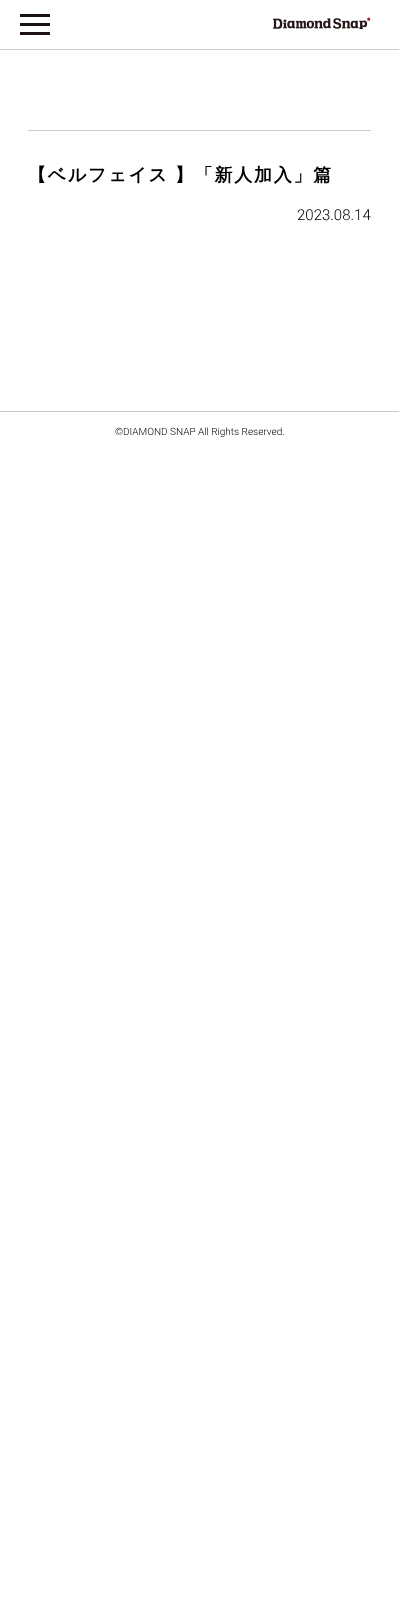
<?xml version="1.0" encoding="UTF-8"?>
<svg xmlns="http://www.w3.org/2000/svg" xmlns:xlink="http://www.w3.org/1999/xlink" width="399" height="1611">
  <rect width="100%" height="100%" fill="#ffffff" />
  <rect x="20" y="14" width="30" height="3" fill="#1a1311" />
  <rect x="20" y="23" width="30" height="3" fill="#1a1311" />
  <rect x="20" y="32" width="30" height="3" fill="#1a1311" />
  <rect y="49" width="399" height="1" fill="#cbcbcb" />
  <image x="273" y="17" width="98" height="12" xlink:href="image1.png" />
  <rect x="28" y="130" width="343" height="1" fill="#cbcbcb" />
  <rect y="411" width="399" height="1" fill="#cbcbcb" />
  <text x="28" y="181" word-spacing="-1" style="font-family: WenQuanYi Zen Hei; font-size: 18px; font-weight: bold; letter-spacing: 1.75px; fill: #000000">【ベルフェイス 】「新人加入」篇</text>
  <text x="297" y="220" style="font-family: Roboto; font-size: 15px; font-weight: 300; fill: #000000">2023.08.14</text>
  <text x="115" y="435" style="font-family: Roboto; font-size: 10px; font-weight: 300; fill: #000000">©DIAMOND SNAP All Rights Reserved.</text>
</svg>
